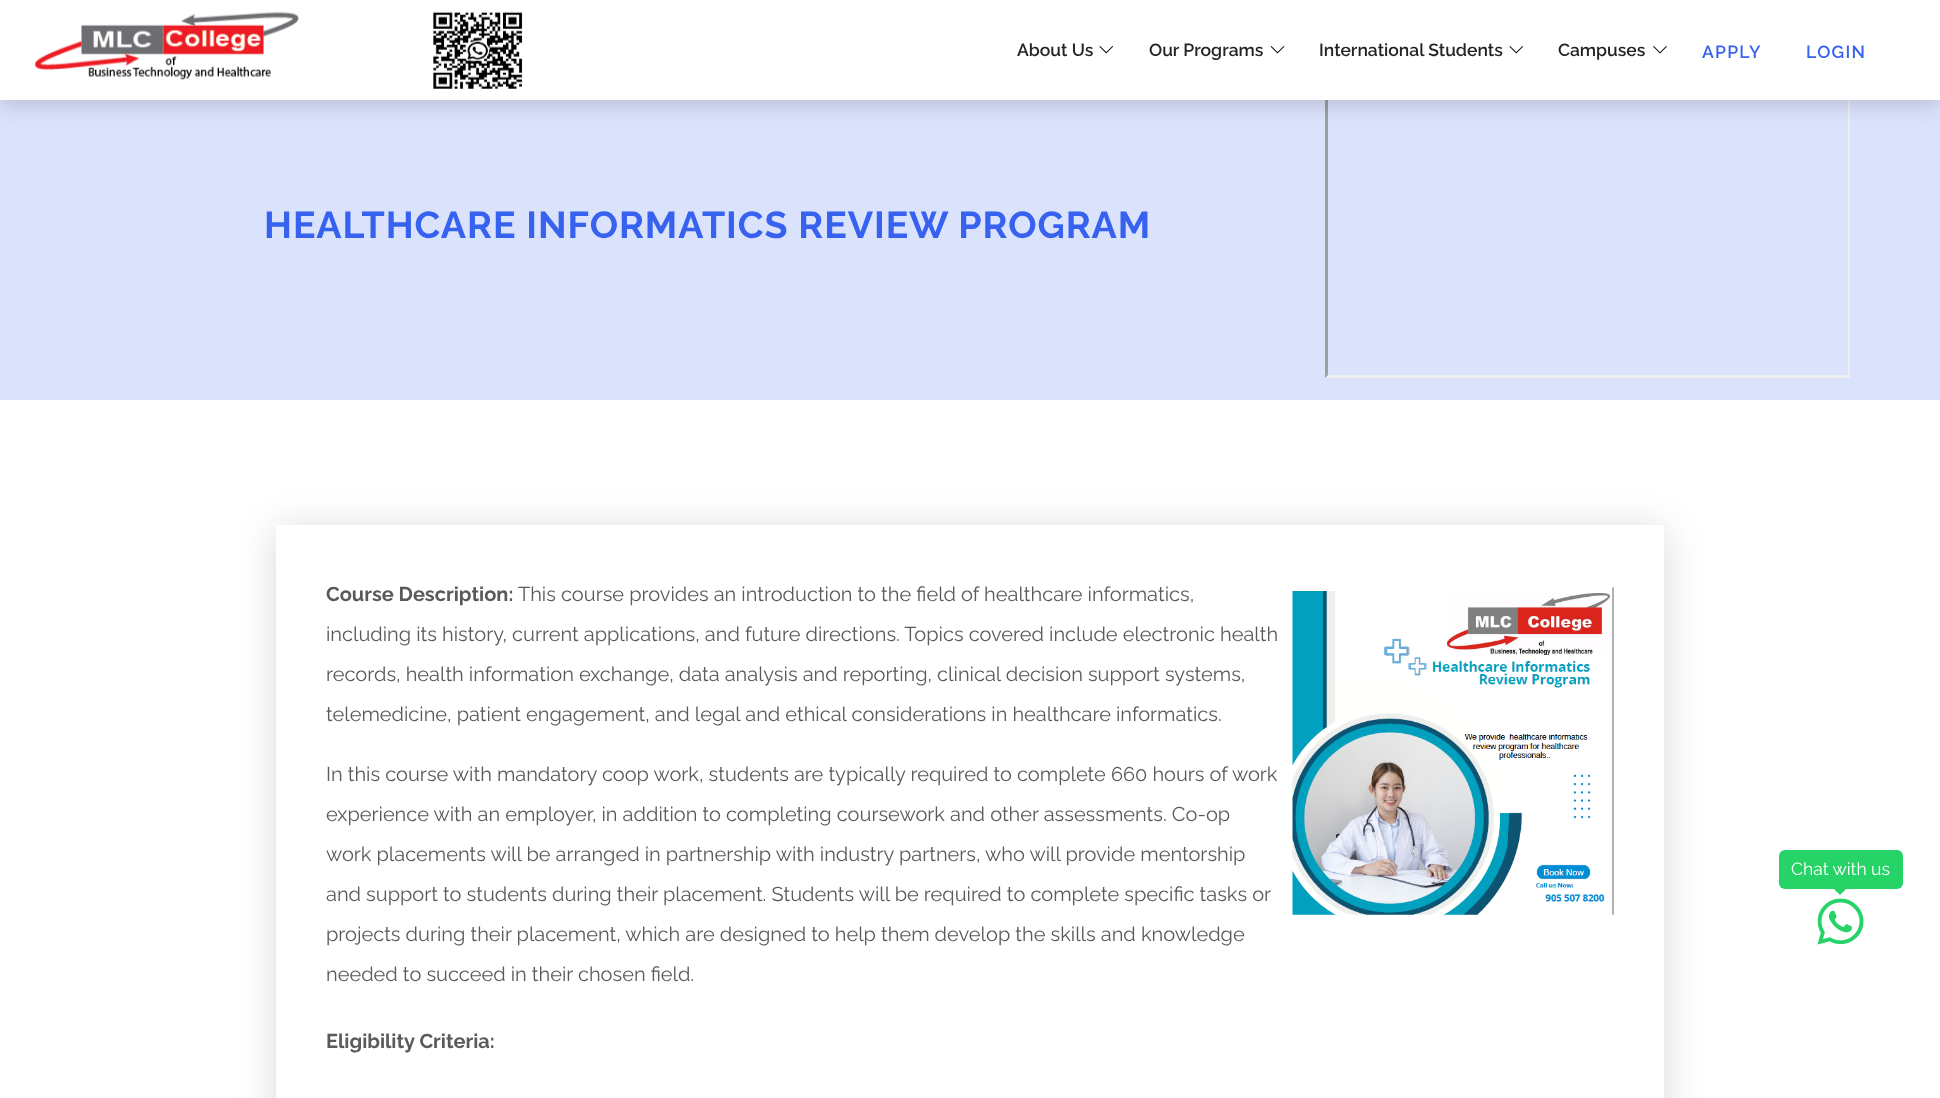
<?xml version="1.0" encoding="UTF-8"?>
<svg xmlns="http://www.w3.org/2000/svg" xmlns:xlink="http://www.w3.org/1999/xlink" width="1940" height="1098">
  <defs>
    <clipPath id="clip1"><path d="M 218 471 h 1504 v 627 h -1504 z m 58 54 h 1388 v 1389 h -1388 z" clip-rule="evenodd" /></clipPath>
  </defs>
  <rect width="100%" height="100%" fill="#ffffff" />
  <rect y="100" width="1940" height="300" fill="#dbe3fc" />
  <path d="M 1850 65 v 313 l -2 -3 v -307 z" fill="#eeeeee" />
  <path d="M 1850 378 h -525 l 3 -3 h 520 z" fill="#eeeeee" />
  <path d="M 1325 378 v -313 l 3 3 v 307 z" fill="#9f9f9f" />
  <rect y="6" width="1940" height="100" fill="#000000" fill-opacity="0.15" filter="blur(9.5px)" />
  <rect width="1940" height="100" fill="#ffffff" />
  <image x="35" y="11" width="264" height="69" xlink:href="image1.png" />
  <image x="433" y="11" width="90" height="78" xlink:href="image2.png" />
  <image x="1099" y="46" width="14" height="8" xlink:href="image3.png" />
  <image x="1270" y="46" width="15" height="8" xlink:href="image4.png" />
  <image x="1509" y="46" width="14" height="8" xlink:href="image3.png" />
  <image x="1653" y="46" width="14" height="8" xlink:href="image5.png" />
  <g clip-path="url(#clip1)">
    <rect x="276" y="529" width="1388" height="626" fill="#000000" fill-opacity="0.15" filter="blur(19px)" />
  </g>
  <image x="1292" y="587" width="322" height="328" xlink:href="image6.png" />
  <rect x="1779" y="850" width="124" height="39" rx="6" fill="#25d366" />
  <path d="M 1834 889 h 12 l -6 6 z" fill="#25d366" />
  <image x="1817" y="898" width="47" height="47" xlink:href="image7.png" />
  <text x="1017" y="56" style="font-family: Raleway; font-size: 17.5px; font-weight: 600; fill: #232323">About Us</text>
  <text x="1149" y="56" style="font-family: Raleway; font-size: 17.5px; font-weight: 600; fill: #232323">Our Programs</text>
  <text x="1319" y="56" style="font-family: Raleway; font-size: 17.5px; font-weight: 600; fill: #232323">International Students</text>
  <text x="1558" y="56" style="font-family: Raleway; font-size: 17.5px; font-weight: 600; fill: #232323">Campuses</text>
  <text x="1702" y="58" style="font-family: Raleway; font-size: 17.5px; font-weight: 600; letter-spacing: 1.25px; fill: #3762f0">APPLY</text>
  <text x="1806" y="58" style="font-family: Raleway; font-size: 17.5px; font-weight: 600; letter-spacing: 1.25px; fill: #3762f0">LOGIN</text>
  <text x="264" y="238" style="font-family: Raleway; font-size: 37.5px; font-weight: bold; letter-spacing: 0.95px; fill: #3762f0">HEALTHCARE INFORMATICS REVIEW PROGRAM</text>
  <text x="326" y="601" style="font-family: Raleway; font-size: 20px; font-weight: bold; fill: #5a5a5a">Course Description:</text>
  <text x="518" y="601" style="font-family: Raleway; font-size: 20px; fill: #5a5a5a">This course provides an introduction to the field of healthcare informatics,</text>
  <text x="326" y="641" style="font-family: Raleway; font-size: 20px; fill: #5a5a5a">including its history, current applications, and future directions. Topics covered include electronic health</text>
  <text x="326" y="681" style="font-family: Raleway; font-size: 20px; fill: #5a5a5a">records, health information exchange, data analysis and reporting, clinical decision support systems,</text>
  <text x="326" y="721" style="font-family: Raleway; font-size: 20px; fill: #5a5a5a">telemedicine, patient engagement, and legal and ethical considerations in healthcare informatics.</text>
  <text x="326" y="781" style="font-family: Raleway; font-size: 20px; fill: #5a5a5a">In this course with mandatory coop work, students are typically required to complete 660 hours of work</text>
  <text x="326" y="821" style="font-family: Raleway; font-size: 20px; fill: #5a5a5a">experience with an employer, in addition to completing coursework and other assessments. Co-op</text>
  <text x="326" y="861" style="font-family: Raleway; font-size: 20px; fill: #5a5a5a">work placements will be arranged in partnership with industry partners, who will provide mentorship</text>
  <text x="326" y="901" style="font-family: Raleway; font-size: 20px; fill: #5a5a5a">and support to students during their placement. Students will be required to complete specific tasks or</text>
  <text x="326" y="941" style="font-family: Raleway; font-size: 20px; fill: #5a5a5a">projects during their placement, which are designed to help them develop the skills and knowledge</text>
  <text x="326" y="981" style="font-family: Raleway; font-size: 20px; fill: #5a5a5a">needed to succeed in their chosen field.</text>
  <text x="326" y="1048" style="font-family: Raleway; font-size: 20px; font-weight: bold; fill: #5a5a5a">Eligibility Criteria:</text>
  <text x="1791" y="875" style="font-family: Raleway; font-size: 17.5px; fill: #ffffff">Chat with us</text>
</svg>
